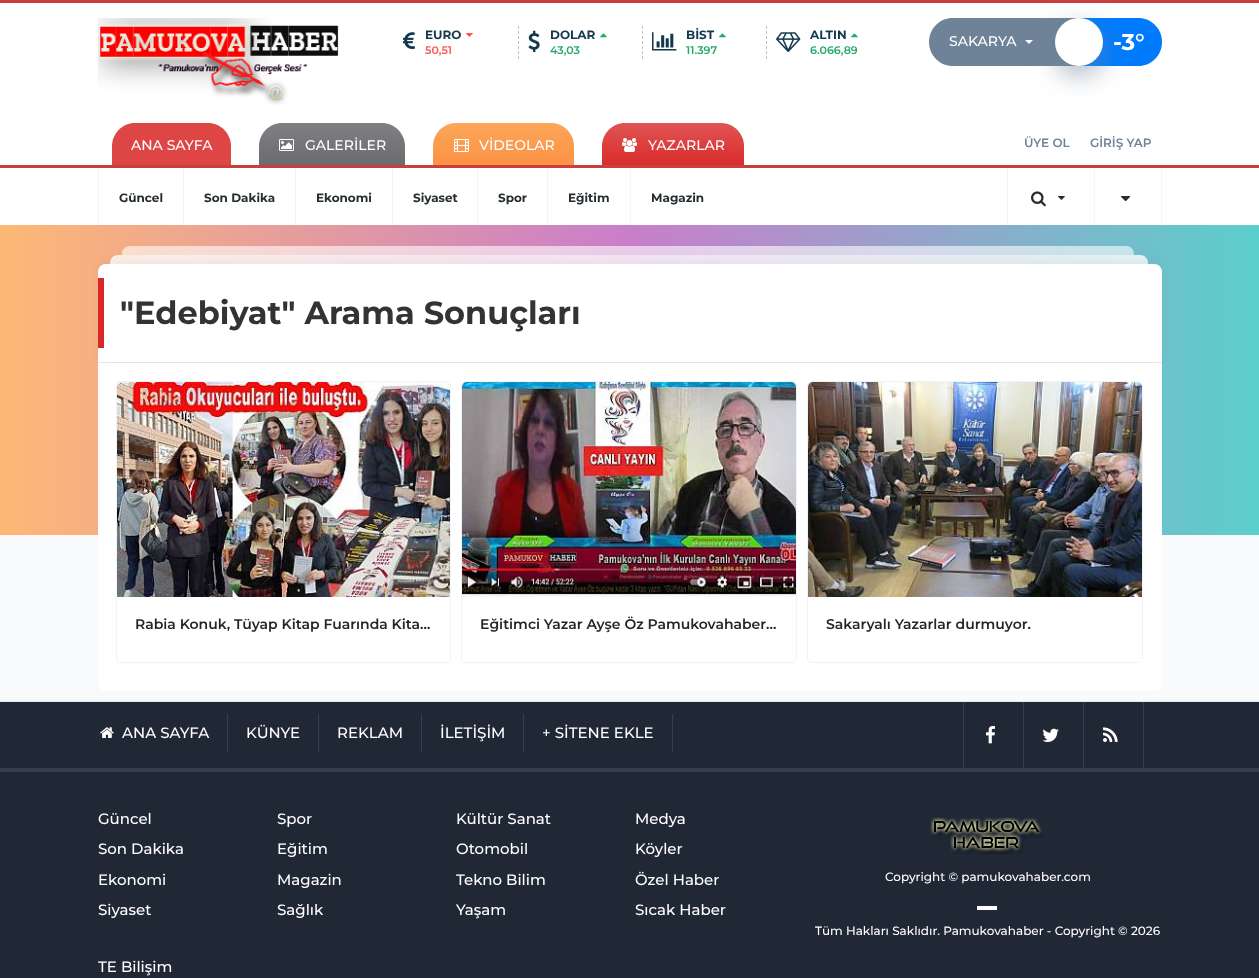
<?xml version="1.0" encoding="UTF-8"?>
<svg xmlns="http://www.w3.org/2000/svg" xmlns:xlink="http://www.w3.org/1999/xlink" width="1259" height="978">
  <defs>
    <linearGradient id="g1" gradientUnits="userSpaceOnUse" x1="332" y1="123" x2="332" y2="165"><stop offset="0" stop-color="#7f8083" /><stop offset="1" stop-color="#6c6c6f" /></linearGradient>
    <linearGradient id="g2" gradientUnits="userSpaceOnUse" x1="504" y1="123" x2="504" y2="165"><stop offset="0" stop-color="#fca658" /><stop offset="1" stop-color="#fb9246" /></linearGradient>
    <linearGradient id="g3" gradientUnits="userSpaceOnUse" x1="673" y1="123" x2="673" y2="165"><stop offset="0" stop-color="#e05454" /><stop offset="1" stop-color="#d92c2b" /></linearGradient>
    <linearGradient id="g4" gradientUnits="userSpaceOnUse" x1="0" y1="235" x2="1259" y2="235"><stop offset="0" stop-color="#feb875" /><stop offset="0.5" stop-color="#c97eca" /><stop offset="1" stop-color="#5bcfcb" /></linearGradient>
    <linearGradient id="g5" gradientUnits="userSpaceOnUse" x1="0" y1="385" x2="1259" y2="385"><stop offset="0" stop-color="#feb875" /><stop offset="0.5" stop-color="#c97eca" /><stop offset="1" stop-color="#5bcfcb" /></linearGradient>
  </defs>
  <rect width="100%" height="100%" fill="#f8fafc" />
  <rect y="3" width="1259" height="162" fill="#ffffff" />
  <rect width="1259" height="3" fill="#c83f3e" />
  <image x="98" y="18" width="241" height="87" xlink:href="image1.png" />
  <image x="403" y="32" width="12" height="17" xlink:href="image2.png" />
  <image x="466" y="33" width="7" height="4" xlink:href="image3.png" />
  <path d="M 518.5 26 v 33" fill="none" stroke="#bfbfc2" stroke-dasharray="3 2" />
  <image x="528" y="30" width="12" height="23" xlink:href="image4.png" />
  <image x="600" y="33" width="7" height="5" xlink:href="image5.png" />
  <path d="M 642.5 26 v 33" fill="none" stroke="#bfbfc2" stroke-dasharray="3 2" />
  <image x="652" y="32" width="25" height="19" xlink:href="image6.png" />
  <image x="719" y="33" width="7" height="5" xlink:href="image5.png" />
  <path d="M 766.5 26 v 33" fill="none" stroke="#bfbfc2" stroke-dasharray="3 2" />
  <image x="776" y="32" width="25" height="20" xlink:href="image7.png" />
  <image x="851" y="33" width="7" height="5" xlink:href="image5.png" />
  <rect x="1055" y="18" width="24" height="48" fill="#6e8398" />
  <rect x="1079" y="18" width="24" height="48" fill="#007bfd" />
  <path d="M 953 18 h 102 v 48 h -102 c -13.5 0 -24 -10.5 -24 -24 c 0 -13.5 10.5 -24 24 -24 z" fill="#6e8398" />
  <path d="M 1025 40 h 8 l -4 4 z" fill="#ffffff" />
  <path d="M 1103 18 h 35 c 13.5 0 24 10.5 24 24 c 0 13.5 -10.5 24 -24 24 h -35 z" fill="#007bfd" />
  <rect x="1055" y="27" width="48" height="48" rx="24" fill="#6e8398" fill-opacity="0.6" filter="blur(13.5px)" />
  <circle cx="1079" cy="42" r="24" fill="#ffffff" />
  <path d="M 135 123 h 73 c 12.5 0 23 10.5 23 23 v 19 h -119 v -19 c 0 -12.5 10.5 -23 23 -23 z" fill="#de4645" />
  <path d="M 282 123 h 100 c 12.5 0 23 10.5 23 23 v 19 h -146 v -19 c 0 -12.5 10.5 -23 23 -23 z" fill="url(#g1)" />
  <image x="279" y="139" width="15" height="12" xlink:href="image8.png" />
  <path d="M 456 123 h 95 c 12.5 0 23 10.5 23 23 v 19 h -141 v -19 c 0 -12.5 10.5 -23 23 -23 z" fill="url(#g2)" />
  <image x="454" y="139" width="15" height="13" xlink:href="image9.png" />
  <path d="M 625 123 h 96 c 12.5 0 23 10.5 23 23 v 19 h -142 v -19 c 0 -12.5 10.5 -23 23 -23 z" fill="url(#g3)" />
  <image x="622" y="138" width="15" height="14" xlink:href="image10.png" />
  <rect y="168" width="1259" height="57" fill="#ffffff" />
  <rect y="165" width="1259" height="3" fill="#c83f3e" />
  <rect x="1161" y="168" width="1" height="57" fill="#f5f5f5" />
  <rect x="98" y="168" width="1" height="57" fill="#f5f5f5" />
  <rect x="183" y="168" width="1" height="57" fill="#f5f5f5" />
  <rect x="295" y="168" width="1" height="57" fill="#f5f5f5" />
  <rect x="392" y="168" width="1" height="57" fill="#f5f5f5" />
  <rect x="477" y="168" width="1" height="57" fill="#f5f5f5" />
  <rect x="547" y="168" width="1" height="57" fill="#f5f5f5" />
  <rect x="630" y="168" width="1" height="57" fill="#f5f5f5" />
  <rect x="1007" y="168" width="1" height="57" fill="#f5f5f5" />
  <image x="1031" y="191" width="15" height="16" xlink:href="image11.png" />
  <image x="1058" y="196" width="7" height="4" xlink:href="image12.png" />
  <rect x="1094" y="168" width="1" height="57" fill="#f5f5f5" />
  <image x="1121" y="196" width="10" height="6" xlink:href="image13.png" />
  <rect y="225" width="1259" height="10" fill="url(#g4)" />
  <rect y="235" width="1259" height="300" fill="url(#g5)" />
  <path d="M 130 246 h 996 c 4.5 0 8 3.5 8 8 v 1 h -1012 v -1 c 0 -4.5 3.5 -8 8 -8 z" fill="#ffffff" fill-opacity="0.6" />
  <path d="M 118 255 h 1022 c 4.5 0 8 3.5 8 8 v 1 h -1038 v -1 c 0 -4.5 3.5 -8 8 -8 z" fill="#ffffff" fill-opacity="0.8" />
  <path d="M 98 363 h 1064 v 320 c 0 4.5 -3.5 8 -8 8 h -1048 c -4.5 0 -8 -3.5 -8 -8 z" fill="#ffffff" />
  <rect x="98" y="260" width="1064" height="99" rx="8" fill="#6e8398" fill-opacity="0.08" filter="blur(4px)" />
  <path d="M 106 264 h 1048 c 4.5 0 8 3.5 8 8 v 91 h -1064 v -91 c 0 -4.5 3.5 -8 8 -8 z" fill="#ffffff" />
  <rect x="98" y="362" width="1064" height="1" fill="#e6e6e6" />
  <rect x="98" y="278" width="6" height="70" fill="#d82726" />
  <rect x="116.5" y="381.5" width="334" height="281" rx="4.5" fill="none" stroke="#eef3f7" />
  <image x="117" y="382" width="333" height="215" xlink:href="image14.png" />
  <rect x="461.5" y="381.5" width="335" height="281" rx="4.5" fill="none" stroke="#eef3f7" />
  <image x="462" y="382" width="334" height="215" xlink:href="image15.png" />
  <rect x="807.5" y="381.5" width="335" height="281" rx="4.5" fill="none" stroke="#eef3f7" />
  <image x="808" y="382" width="334" height="215" xlink:href="image16.png" />
  <rect y="702" width="1259" height="66" fill="#202735" />
  <rect y="701" width="1259" height="1" fill="#dfe9ee" />
  <rect y="768" width="1259" height="4" fill="#373d4a" />
  <rect x="227" y="714" width="1" height="38" fill="#373d4a" />
  <image x="100" y="727" width="14" height="11" xlink:href="image17.png" />
  <rect x="318" y="714" width="1" height="38" fill="#373d4a" />
  <rect x="421" y="714" width="1" height="38" fill="#373d4a" />
  <rect x="523" y="714" width="1" height="38" fill="#373d4a" />
  <rect x="672" y="714" width="1" height="38" fill="#373d4a" />
  <rect x="963" y="702" width="1" height="66" fill="#373d4a" />
  <rect x="1023" y="702" width="1" height="66" fill="#373d4a" />
  <image x="986" y="726" width="9" height="18" xlink:href="image18.png" />
  <rect x="1083" y="702" width="1" height="66" fill="#373d4a" />
  <image x="1042" y="728" width="17" height="14" xlink:href="image19.png" />
  <rect x="1143" y="702" width="1" height="66" fill="#373d4a" />
  <image x="1103" y="727" width="15" height="15" xlink:href="image20.png" />
  <rect y="772" width="1259" height="206" fill="#202735" />
  <image x="930" y="817" width="113" height="38" xlink:href="image21.png" />
  <rect x="977" y="906" width="20" height="4" fill="#ffffff" />
  <text x="425" y="39" style="font-family: Montserrat; font-size: 12px; font-weight: bold; fill: #13394e">EURO</text>
  <text x="425" y="54" style="font-family: Montserrat; font-size: 11px; font-weight: 600; fill: #fa5a4c">50,51</text>
  <text x="550" y="39" style="font-family: Montserrat; font-size: 12px; font-weight: bold; fill: #13394e">DOLAR</text>
  <text x="550" y="54" style="font-family: Montserrat; font-size: 11px; font-weight: 600; fill: #26aa6c">43,03</text>
  <text x="686" y="39" style="font-family: Montserrat; font-size: 12px; font-weight: bold; fill: #13394e">BİST</text>
  <text x="686" y="54" style="font-family: Montserrat; font-size: 11px; font-weight: 600; fill: #26aa6c">11.397</text>
  <text x="810" y="39" style="font-family: Montserrat; font-size: 12px; font-weight: bold; fill: #13394e">ALTIN</text>
  <text x="810" y="54" style="font-family: Montserrat; font-size: 11px; font-weight: 600; fill: #26aa6c">6.066,89</text>
  <text x="949" y="46" style="font-family: Montserrat; font-size: 14px; font-weight: 500; fill: #ffffff">SAKARYA</text>
  <text x="1113" y="50" style="font-family: Montserrat; font-size: 23px; font-weight: bold; fill: #ffffff">-3</text>
  <text x="1135" y="50" style="font-family: Montserrat; font-size: 23px; font-weight: 600; fill: #ffffff">°</text>
  <text x="131" y="150" style="font-family: Montserrat; font-size: 14px; font-weight: 500; fill: #ffffff">ANA SAYFA</text>
  <text x="305" y="150" style="font-family: Montserrat; font-size: 14px; font-weight: 500; fill: #ffffff">GALERİLER</text>
  <text x="479" y="150" style="font-family: Montserrat; font-size: 14px; font-weight: 500; fill: #ffffff">VİDEOLAR</text>
  <text x="648" y="150" style="font-family: Montserrat; font-size: 14px; font-weight: 500; fill: #ffffff">YAZARLAR</text>
  <text x="1024" y="147" style="font-family: Montserrat; font-size: 12px; font-weight: 600; fill: #6e8398">ÜYE OL</text>
  <text x="1090" y="147" style="font-family: Montserrat; font-size: 12px; font-weight: 600; fill: #6e8398">GİRİŞ YAP</text>
  <text x="119" y="202" style="font-family: Montserrat; font-size: 12px; font-weight: bold; fill: #252d31">Güncel</text>
  <text x="204" y="202" style="font-family: Montserrat; font-size: 12px; font-weight: bold; fill: #252d31">Son Dakika</text>
  <text x="316" y="202" style="font-family: Montserrat; font-size: 12px; font-weight: bold; fill: #252d31">Ekonomi</text>
  <text x="413" y="202" style="font-family: Montserrat; font-size: 12px; font-weight: bold; fill: #252d31">Siyaset</text>
  <text x="498" y="202" style="font-family: Montserrat; font-size: 12px; font-weight: bold; fill: #252d31">Spor</text>
  <text x="568" y="202" style="font-family: Montserrat; font-size: 12px; font-weight: bold; fill: #252d31">Eğitim</text>
  <text x="651" y="202" style="font-family: Montserrat; font-size: 12px; font-weight: bold; fill: #252d31">Magazin</text>
  <text x="120" y="324" style="font-family: Montserrat; font-size: 32px; font-weight: bold; fill: #333333">"Edebiyat" Arama Sonuçları</text>
  <text x="135" y="629" style="font-family: Montserrat; font-size: 14px; font-weight: 600; fill: #252525">Rabia Konuk, Tüyap Kitap Fuarında Kita…</text>
  <text x="480" y="629" style="font-family: Montserrat; font-size: 14px; font-weight: 600; fill: #252525">Eğitimci Yazar Ayşe Öz Pamukovahaber…</text>
  <text x="826" y="629" style="font-family: Montserrat; font-size: 14px; font-weight: 600; fill: #252525">Sakaryalı Yazarlar durmuyor.</text>
  <text x="122" y="738" style="font-family: Montserrat; font-size: 15px; font-weight: 500; fill: #ffffff">ANA SAYFA</text>
  <text x="246" y="738" style="font-family: Montserrat; font-size: 15px; font-weight: 500; fill: #ffffff">KÜNYE</text>
  <text x="337" y="738" style="font-family: Montserrat; font-size: 15px; font-weight: 500; fill: #ffffff">REKLAM</text>
  <text x="440" y="738" style="font-family: Montserrat; font-size: 15px; font-weight: 500; fill: #ffffff">İLETİŞİM</text>
  <text x="542" y="738" style="font-family: Montserrat; font-size: 15px; font-weight: 500; fill: #ffffff">+ SİTENE EKLE</text>
  <text x="98" y="824" style="font-family: Montserrat; font-size: 15px; font-weight: 500; fill: #ffffff">Güncel</text>
  <text x="98" y="854" style="font-family: Montserrat; font-size: 15px; font-weight: 500; fill: #ffffff">Son Dakika</text>
  <text x="98" y="885" style="font-family: Montserrat; font-size: 15px; font-weight: 500; fill: #ffffff">Ekonomi</text>
  <text x="98" y="915" style="font-family: Montserrat; font-size: 15px; font-weight: 500; fill: #ffffff">Siyaset</text>
  <text x="277" y="824" style="font-family: Montserrat; font-size: 15px; font-weight: 500; fill: #ffffff">Spor</text>
  <text x="277" y="854" style="font-family: Montserrat; font-size: 15px; font-weight: 500; fill: #ffffff">Eğitim</text>
  <text x="277" y="885" style="font-family: Montserrat; font-size: 15px; font-weight: 500; fill: #ffffff">Magazin</text>
  <text x="277" y="915" style="font-family: Montserrat; font-size: 15px; font-weight: 500; fill: #ffffff">Sağlık</text>
  <text x="456" y="824" style="font-family: Montserrat; font-size: 15px; font-weight: 500; fill: #ffffff">Kültür Sanat</text>
  <text x="456" y="854" style="font-family: Montserrat; font-size: 15px; font-weight: 500; fill: #ffffff">Otomobil</text>
  <text x="456" y="885" style="font-family: Montserrat; font-size: 15px; font-weight: 500; fill: #ffffff">Tekno Bilim</text>
  <text x="456" y="915" style="font-family: Montserrat; font-size: 15px; font-weight: 500; fill: #ffffff">Yaşam</text>
  <text x="635" y="824" style="font-family: Montserrat; font-size: 15px; font-weight: 500; fill: #ffffff">Medya</text>
  <text x="635" y="854" style="font-family: Montserrat; font-size: 15px; font-weight: 500; fill: #ffffff">Köyler</text>
  <text x="635" y="885" style="font-family: Montserrat; font-size: 15px; font-weight: 500; fill: #ffffff">Özel Haber</text>
  <text x="635" y="915" style="font-family: Montserrat; font-size: 15px; font-weight: 500; fill: #ffffff">Sıcak Haber</text>
  <text x="885" y="881" style="font-family: Montserrat; font-size: 12px; font-weight: 500; fill: #ffffff">Copyright © pamukovahaber.com</text>
  <text x="815" y="935" style="font-family: Montserrat; font-size: 12px; font-weight: 500; fill: #ffffff">Tüm Hakları Saklıdır. Pamukovahaber - Copyright © 2026</text>
  <text x="98" y="972" style="font-family: Montserrat; font-size: 15px; font-weight: 500; fill: #ffffff">TE Bilişim</text>
</svg>
